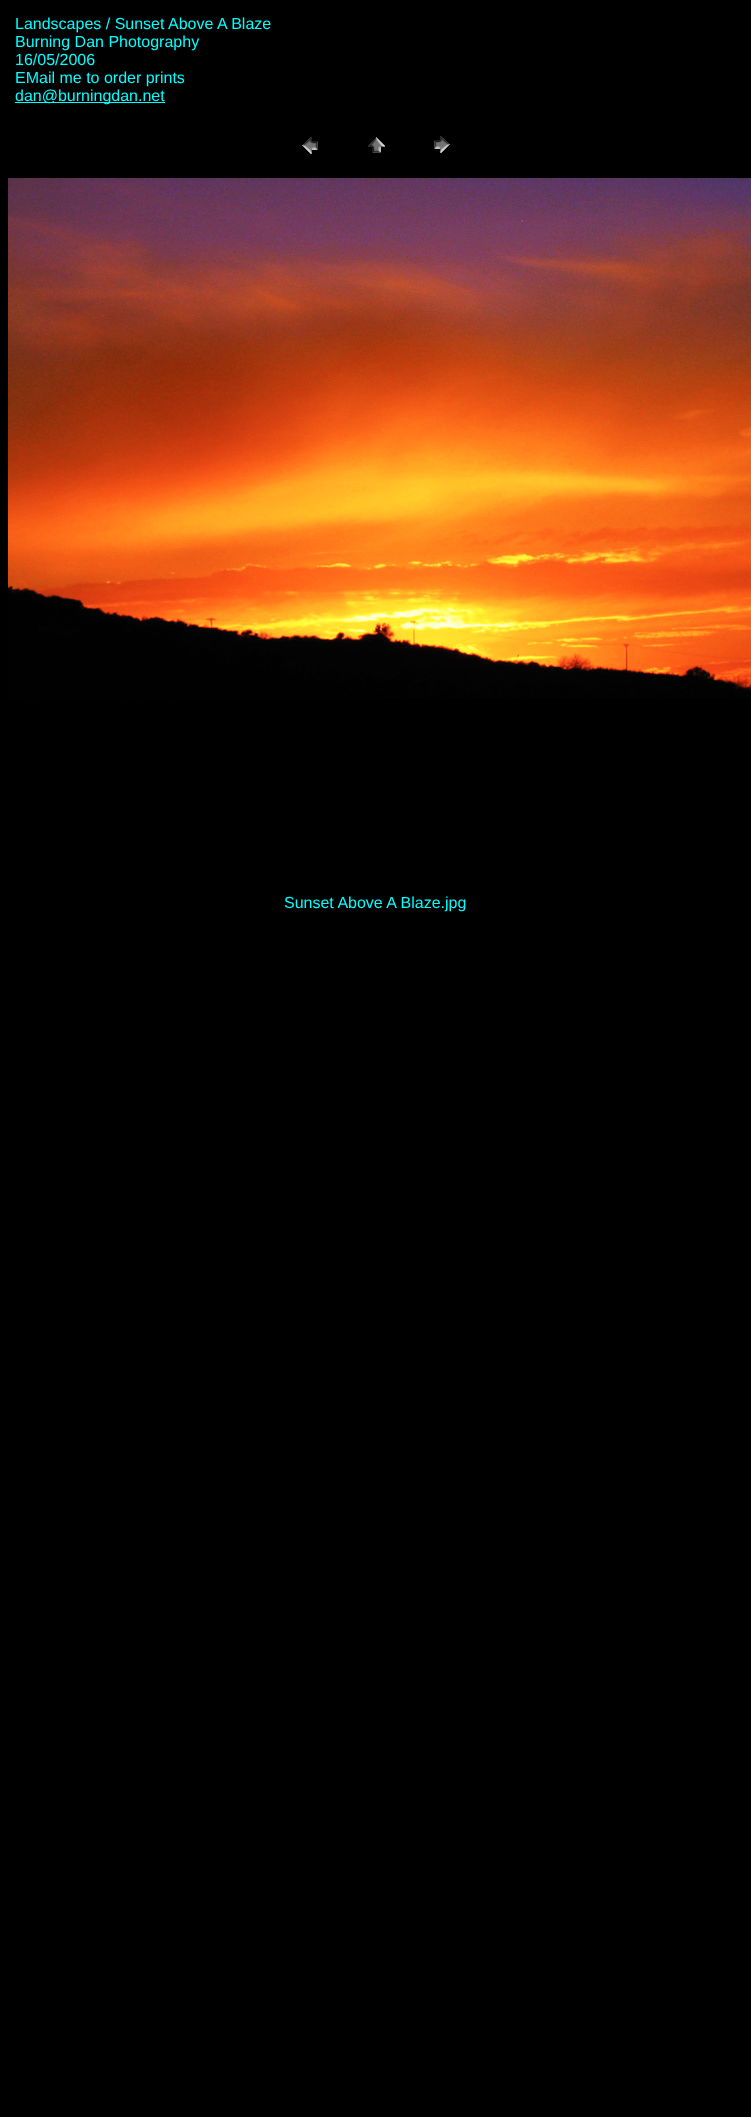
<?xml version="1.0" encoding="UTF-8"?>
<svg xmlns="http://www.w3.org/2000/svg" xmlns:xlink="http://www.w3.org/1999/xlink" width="751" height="2117">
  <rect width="100%" height="100%" fill="#000000" />
  <rect x="15" y="102" width="150" height="1" fill="#00ffff" />
  <image x="302" y="137" width="16" height="17" xlink:href="image1.png" />
  <image x="368" y="137" width="17" height="16" xlink:href="image2.png" />
  <image x="434" y="136" width="16" height="17" xlink:href="image3.png" />
  <image x="8" y="178" width="743" height="520" xlink:href="image4.png" />
  <text x="15" y="29" style="font-family: Liberation Sans; font-size: 16px; fill: #00ffff">Landscapes / Sunset Above A Blaze</text>
  <text x="15" y="47" style="font-family: Liberation Sans; font-size: 16px; fill: #00ffff">Burning Dan Photography</text>
  <text x="15" y="65" style="font-family: Liberation Sans; font-size: 16px; fill: #00ffff">16/05/2006</text>
  <text x="15" y="83" style="font-family: Liberation Sans; font-size: 16px; fill: #00ffff">EMail me to order prints</text>
  <text x="15" y="101" style="font-family: Liberation Sans; font-size: 16px; fill: #00ffff">dan@burningdan.net</text>
  <text x="284" y="908" style="font-family: Liberation Sans; font-size: 16px; fill: #00ffff">Sunset Above A Blaze.jpg</text>
</svg>
